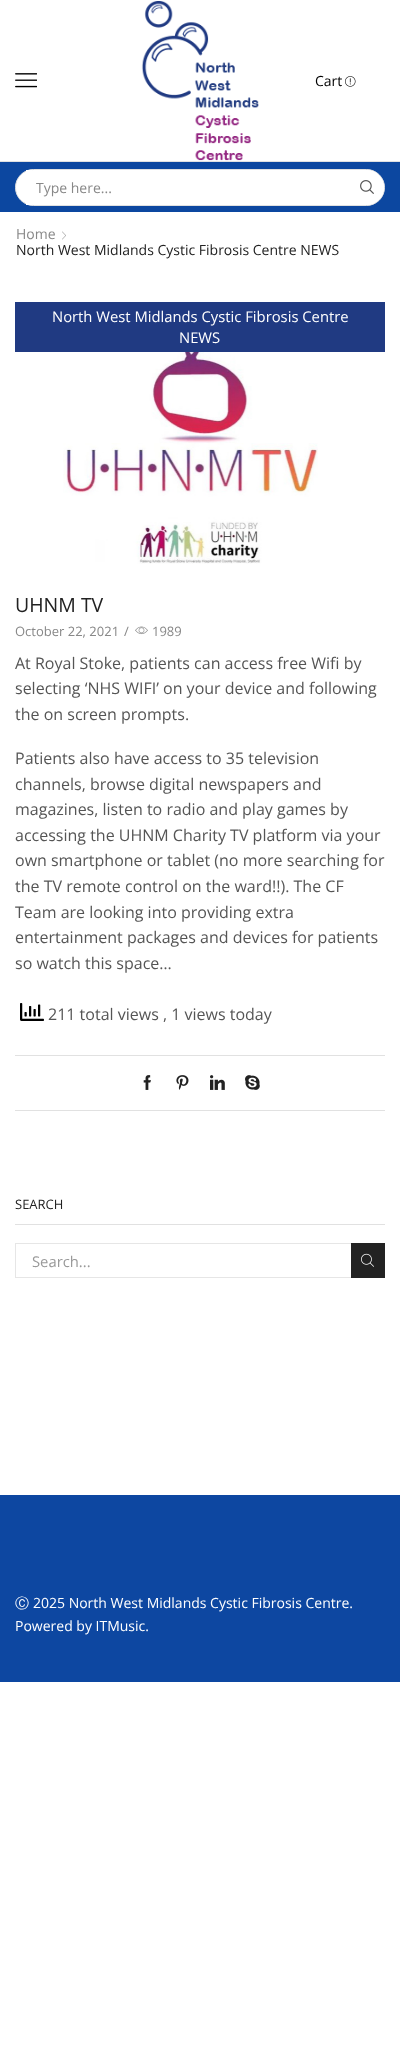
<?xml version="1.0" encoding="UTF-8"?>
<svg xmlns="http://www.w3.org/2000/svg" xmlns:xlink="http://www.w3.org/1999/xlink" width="400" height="2055">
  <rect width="100%" height="100%" fill="#ffffff" />
  <rect y="161" width="400" height="1" fill="#e1e1e1" />
  <image x="15" y="73" width="22" height="15" xlink:href="image1.png" />
  <image x="141" y="1" width="118" height="160" xlink:href="image2.png" />
  <image x="345" y="76" width="11" height="11" xlink:href="image3.png" />
  <rect y="162" width="400" height="50" fill="#0c47a0" />
  <rect x="15.5" y="169.5" width="369" height="36" rx="18" fill="#ffffff" stroke="#e1e1e1" />
  <rect x="26" y="170" width="6" height="35" fill="#ffffff" />
  <circle cx="366.5" cy="187.5" r="17.5" fill="#ffffff" />
  <image x="360" y="180" width="14" height="14" xlink:href="image4.png" />
  <image x="62" y="231" width="4" height="9" xlink:href="image5.png" />
  <rect x="15" y="302" width="370" height="50" fill="#203a82" />
  <image x="63" y="352" width="255" height="212" xlink:href="image6.png" />
  <image x="135" y="626" width="13" height="9" xlink:href="image7.png" />
  <image x="20" y="1003" width="24" height="18" xlink:href="image8.png" />
  <rect x="15" y="1055" width="370" height="1" fill="#e1e1e1" />
  <rect x="15" y="1110" width="370" height="1" fill="#e1e1e1" />
  <image x="143" y="1075" width="8" height="15" xlink:href="image9.png" />
  <image x="176" y="1075" width="13" height="15" xlink:href="image10.png" />
  <image x="210" y="1075" width="15" height="15" xlink:href="image11.png" />
  <image x="245" y="1075" width="15" height="15" xlink:href="image12.png" />
  <rect x="15" y="1224" width="370" height="1" fill="#e1e1e1" />
  <rect x="15.5" y="1243.5" width="369" height="34" fill="none" stroke="#e6e6e6" />
  <rect x="351" y="1243" width="34" height="35" fill="#222222" />
  <image x="361" y="1253" width="13" height="14" xlink:href="image13.png" />
  <rect y="1495" width="400" height="187" fill="#0d47a1" />
  <text x="315" y="86" style="font-family: Open Sans; font-size: 14px; fill: #000000">Cart</text>
  <text x="36" y="193" style="font-family: Open Sans; font-size: 14px; fill: #888888">Type here...</text>
  <text x="16" y="239" style="font-family: Open Sans; font-size: 14px; fill: #888888">Home</text>
  <text x="16" y="255" style="font-family: Open Sans; font-size: 14px; fill: #222222">North West Midlands Cystic Fibrosis Centre NEWS</text>
  <text x="52" y="322" style="font-family: Open Sans; font-size: 14.8px; fill: #ffffff">North West Midlands Cystic Fibrosis Centre</text>
  <text x="179" y="343" style="font-family: Open Sans; font-size: 14.8px; fill: #ffffff">NEWS</text>
  <text x="15" y="612" style="font-family: Open Sans; font-size: 19.5px; fill: #222222">UHNM TV</text>
  <text x="15" y="636" style="font-family: Open Sans; font-size: 13px; fill: #888888">October 22, 2021</text>
  <text x="124" y="636" style="font-family: Open Sans; font-size: 13px; fill: #888888">/</text>
  <text x="152" y="636" style="font-family: Open Sans; font-size: 13px; fill: #888888">1989</text>
  <text x="15" y="669" style="font-family: Open Sans; font-size: 16px; fill: #555555">At Royal Stoke, patients can access free Wifi by</text>
  <text x="15" y="694" style="font-family: Open Sans; font-size: 16px; fill: #555555">selecting ‘NHS WIFI’ on your device and following</text>
  <text x="15" y="720" style="font-family: Open Sans; font-size: 16px; fill: #555555">the on screen prompts.</text>
  <text x="15" y="764" style="font-family: Open Sans; font-size: 16px; fill: #555555">Patients also have access to 35 television</text>
  <text x="15" y="790" style="font-family: Open Sans; font-size: 16px; fill: #555555">channels, browse digital newspapers and</text>
  <text x="15" y="815" style="font-family: Open Sans; font-size: 16px; fill: #555555">magazines, listen to radio and play games by</text>
  <text x="15" y="841" style="font-family: Open Sans; font-size: 16px; fill: #555555">accessing the UHNM Charity TV platform via your</text>
  <text x="15" y="866" style="font-family: Open Sans; font-size: 16px; fill: #555555">own smartphone or tablet (no more searching for</text>
  <text x="15" y="892" style="font-family: Open Sans; font-size: 16px; fill: #555555">the TV remote control on the ward!!). The CF</text>
  <text x="15" y="918" style="font-family: Open Sans; font-size: 16px; fill: #555555">Team are looking into providing extra</text>
  <text x="15" y="943" style="font-family: Open Sans; font-size: 16px; fill: #555555">entertainment packages and devices for patients</text>
  <text x="15" y="969" style="font-family: Open Sans; font-size: 16px; fill: #555555">so watch this space…</text>
  <text x="48" y="1020" style="font-family: Open Sans; font-size: 16px; fill: #555555">211 total views , 1 views today</text>
  <text x="15" y="1209" style="font-family: Open Sans; font-size: 13px; fill: #222222">SEARCH</text>
  <text x="32" y="1267" style="font-family: Open Sans; font-size: 14.8px; fill: #999999">Search...</text>
  <text x="15" y="1608" style="font-family: WenQuanYi Zen Hei; font-size: 14px; font-weight: 500; fill: #ffffff">Ⓒ</text>
  <text x="33" y="1608" style="font-family: Open Sans; font-size: 14px; fill: #ffffff">2025 North West Midlands Cystic Fibrosis Centre.</text>
  <text x="15" y="1631" style="font-family: Open Sans; font-size: 14px; fill: #ffffff">Powered by ITMusic.</text>
</svg>
